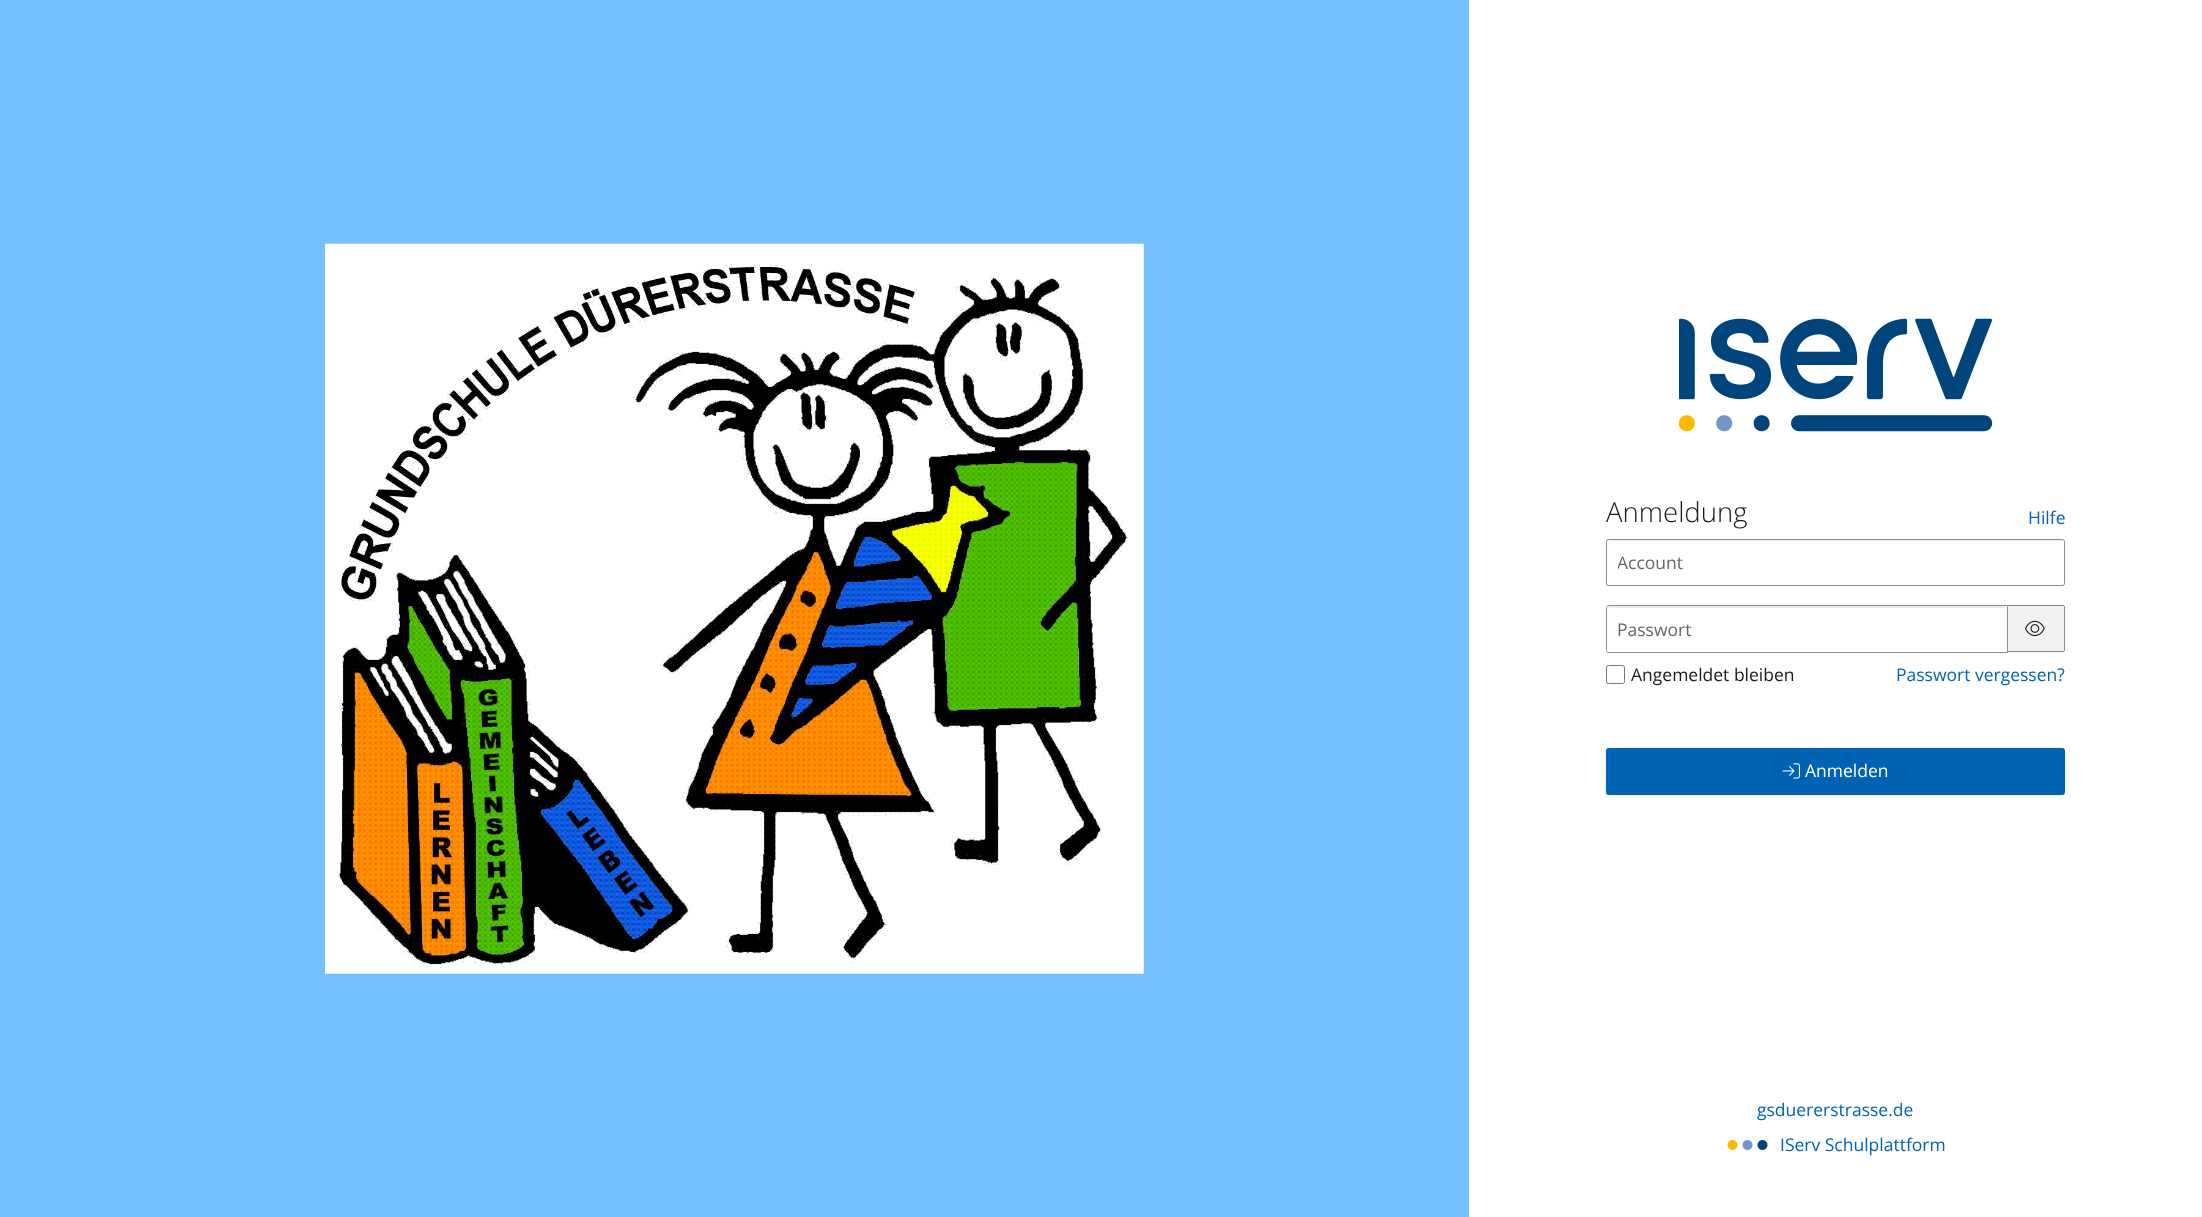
<?xml version="1.0" encoding="UTF-8"?>
<svg xmlns="http://www.w3.org/2000/svg" xmlns:xlink="http://www.w3.org/1999/xlink" width="2202" height="1217">
  <defs>
    <clipPath id="clip1"><rect x="1618" y="550" width="436" height="24" /></clipPath>
  </defs>
  <rect width="100%" height="100%" fill="#ffffff" />
  <rect width="1469" height="1217" fill="#75c1ff" />
  <image x="325" y="243" width="819" height="731" xlink:href="image1.png" />
  <image x="1679" y="318" width="314" height="114" xlink:href="image2.png" />
  <path d="M 1609 541 h 453 l 2 1 c 0 -1 0 -2 -1 -2 h -454 l -1 1 v 1 z" fill="#ececec" />
  <rect x="1606.5" y="539.5" width="458" height="46" rx="2" fill="none" stroke="#8c8c8c" />
  <path d="M 1609 608 h 397 v -2 h -398 v 2 z" fill="#ececec" />
  <path d="M 1608.5 605.5 h 399 v 47 h -399 c -1 0 -2 -1 -2 -2 v -43 c 0 -1 1 -2 2 -2 z" fill="none" stroke="#8c8c8c" />
  <path d="M 2008 605 h 54.5 c 1.5 0 2.5 1 2.5 2.5 v 43 c 0 1.5 -1 2.5 -2.5 2.5 h -54.5 z" fill="#f2f2f2" />
  <rect x="2008" y="605" width="56" height="1" fill="#8c8c8c" />
  <rect x="2064" y="606" width="1" height="45" fill="#8c8c8c" />
  <rect x="2008" y="651" width="56" height="1" fill="#8c8c8c" />
  <image x="2025" y="620" width="20" height="17" xlink:href="image3.png" />
  <rect x="1606.5" y="665.5" width="18" height="18" rx="2" fill="none" stroke="#767676" />
  <rect x="1606" y="749" width="459" height="47" rx="2.5" fill="#000000" fill-opacity="0.08" filter="blur(2px)" />
  <rect x="1606.5" y="748.5" width="458" height="46" rx="2" fill="#0062b3" stroke="#0062b3" />
  <image x="1782" y="763" width="18" height="16" xlink:href="image4.png" />
  <image x="1727" y="1140" width="11" height="10" xlink:href="image5.png" />
  <image x="1742" y="1140" width="11" height="10" xlink:href="image6.png" />
  <image x="1757" y="1140" width="11" height="10" xlink:href="image7.png" />
  <text x="1606" y="522" style="font-family: Open Sans; font-size: 27.5px; font-weight: 300; fill: #1a1a1a">Anmeldung</text>
  <text x="2028" y="524" style="font-family: Open Sans; font-size: 17.5px; fill: #0062b3">Hilfe</text>
  <g clip-path="url(#clip1)">
    <text x="1617" y="569" style="font-family: Open Sans; font-size: 17.5px; fill: #666666">Account</text>
  </g>
  <text x="1617" y="636" style="font-family: Open Sans; font-size: 17.5px; fill: #666666">Passwort</text>
  <text x="1631" y="681" style="font-family: Open Sans; font-size: 17.5px; fill: #1a1a1a">Angemeldet bleiben</text>
  <text x="1896" y="681" style="font-family: Open Sans; font-size: 17.5px; fill: #0062b3">Passwort vergessen?</text>
  <text x="1805" y="777" style="font-family: Open Sans; font-size: 17.5px; fill: #ffffff">Anmelden</text>
  <text x="1757" y="1116" style="font-family: Open Sans; font-size: 17.5px; fill: #0062b3">gsduererstrasse.de</text>
  <text x="1780" y="1151" style="font-family: Open Sans; font-size: 17.5px; fill: #0062b3">IServ Schulplattform</text>
</svg>
